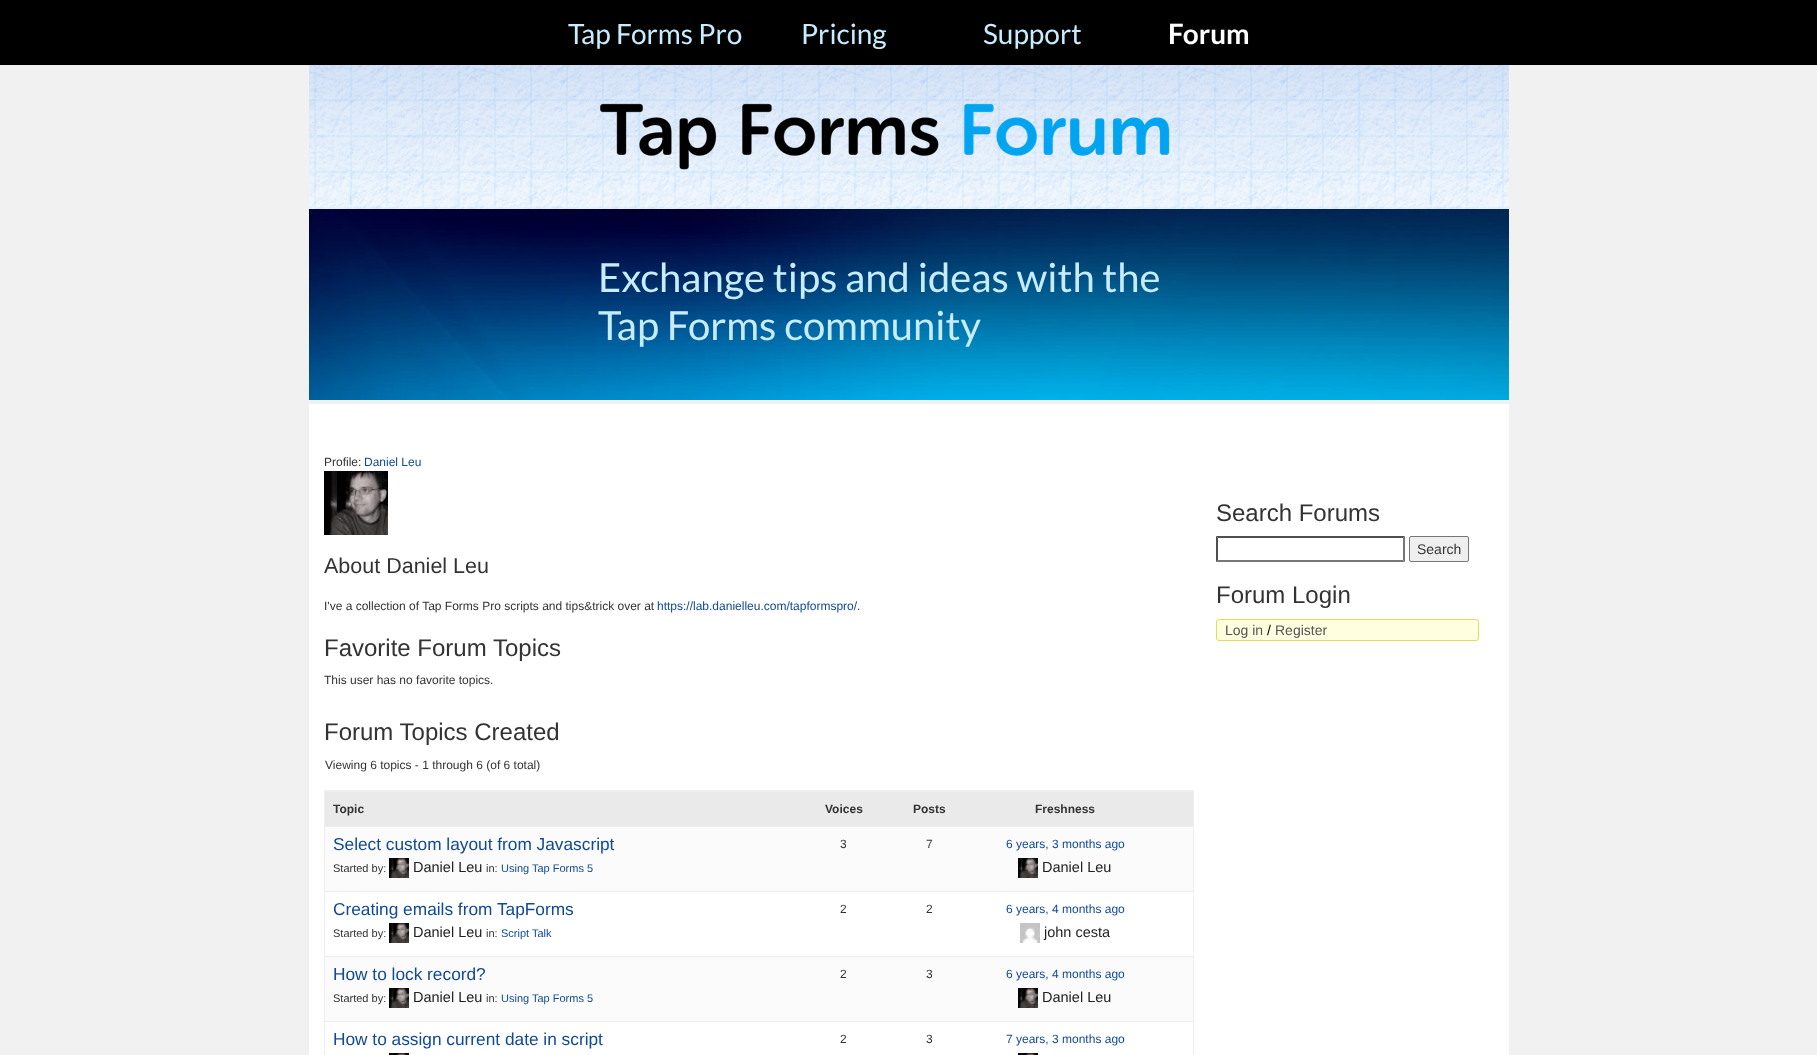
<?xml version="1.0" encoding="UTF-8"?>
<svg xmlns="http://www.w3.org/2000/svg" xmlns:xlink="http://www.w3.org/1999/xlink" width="1817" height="1055">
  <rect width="100%" height="100%" fill="#f1f1f1" />
  <rect width="1817" height="65" fill="#000000" />
  <image x="309" y="65" width="1200" height="144" xlink:href="image1.png" />
  <image x="600" y="103" width="570" height="67" xlink:href="image2.png" />
  <image x="309" y="209" width="1200" height="191" xlink:href="image3.png" />
  <rect x="309" y="404" width="1200" height="651" fill="#ffffff" />
  <image x="324" y="471" width="64" height="64" xlink:href="image4.png" />
  <rect x="324.5" y="790.5" width="869" height="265" fill="none" stroke="#eeeeee" />
  <rect x="325" y="792" width="868" height="34" fill="#eaeaea" />
  <rect x="325" y="791" width="868" height="1" fill="#eeeeee" />
  <rect x="325" y="827" width="868" height="64" fill="#fbfbfb" />
  <rect x="325" y="826" width="868" height="1" fill="#eeeeee" />
  <image x="389" y="858" width="20" height="20" xlink:href="image5.png" />
  <image x="1018" y="858" width="20" height="20" xlink:href="image6.png" />
  <rect x="325" y="891" width="868" height="1" fill="#eeeeee" />
  <image x="389" y="923" width="20" height="20" xlink:href="image5.png" />
  <image x="1020" y="923" width="20" height="20" xlink:href="image7.png" />
  <rect x="325" y="957" width="868" height="64" fill="#fbfbfb" />
  <rect x="325" y="956" width="868" height="1" fill="#eeeeee" />
  <image x="389" y="988" width="20" height="20" xlink:href="image5.png" />
  <image x="1018" y="988" width="20" height="20" xlink:href="image6.png" />
  <rect x="325" y="1021" width="868" height="1" fill="#eeeeee" />
  <image x="389" y="1053" width="20" height="2" xlink:href="image8.png" />
  <image x="1018" y="1053" width="20" height="2" xlink:href="image9.png" />
  <path d="M 1216 536 h 189 l -2 2 h -185 z" fill="#4f4f4f" />
  <path d="M 1405 536 v 26 l -2 -2 v -22 z" fill="#767676" />
  <path d="M 1405 562 h -189 l 2 -2 h 185 z" fill="#767676" />
  <path d="M 1216 562 v -26 l 2 2 v 22 z" fill="#4f4f4f" />
  <rect x="1409.5" y="536.5" width="59" height="25" rx="1.5" fill="#efefef" stroke="#767676" />
  <rect x="1216.5" y="619.5" width="262" height="21" rx="2.5" fill="#ffffe0" stroke="#e6db55" />
  <text x="568" y="44" style="font-family: Lato; font-size: 28px; fill: #c6ecfd">Tap Forms Pro</text>
  <text x="801" y="44" style="font-family: Lato; font-size: 28px; fill: #c6ecfd">Pricing</text>
  <text x="983" y="44" style="font-family: Lato; font-size: 28px; fill: #c6ecfd">Support</text>
  <text x="1168" y="44" style="font-family: Lato; font-size: 28px; font-weight: bold; fill: #ffffff">Forum</text>
  <text x="598" y="292" style="font-family: Lato; font-size: 40px; fill: #c6ecfd">Exchange tips and ideas with the</text>
  <text x="598" y="340" style="font-family: Lato; font-size: 40px; fill: #c6ecfd">Tap Forms community</text>
  <text x="324" y="466" style="font-family: Liberation Sans; font-size: 12px; fill: #333333">Profile:</text>
  <text x="364" y="466" style="font-family: Liberation Sans; font-size: 12px; fill: #104995">Daniel Leu</text>
  <text x="324" y="573" style="font-family: Liberation Sans; font-size: 21.5px; fill: #333333">About Daniel Leu</text>
  <text x="324" y="610" style="font-family: Liberation Sans; font-size: 12px; fill: #333333">I've a collection of Tap Forms Pro scripts and tips&amp;trick over at</text>
  <text x="657" y="610" style="font-family: Liberation Sans; font-size: 12px; fill: #104995">https://lab.danielleu.com/tapformspro/</text>
  <text x="857" y="610" style="font-family: Liberation Sans; font-size: 12px; fill: #333333">.</text>
  <text x="324" y="656" style="font-family: Liberation Sans; font-size: 24px; fill: #333333">Favorite Forum Topics</text>
  <text x="324" y="684" style="font-family: Liberation Sans; font-size: 12px; fill: #333333">This user has no favorite topics.</text>
  <text x="324" y="740" style="font-family: Liberation Sans; font-size: 24px; fill: #333333">Forum Topics Created</text>
  <text x="325" y="769" style="font-family: Liberation Sans; font-size: 12px; fill: #333333">Viewing 6 topics - 1 through 6 (of 6 total)</text>
  <text x="333" y="813" style="font-family: Liberation Sans; font-size: 12px; font-weight: bold; fill: #333333">Topic</text>
  <text x="825" y="813" style="font-family: Liberation Sans; font-size: 12px; font-weight: bold; fill: #333333">Voices</text>
  <text x="913" y="813" style="font-family: Liberation Sans; font-size: 12px; font-weight: bold; fill: #333333">Posts</text>
  <text x="1035" y="813" style="font-family: Liberation Sans; font-size: 12px; font-weight: bold; fill: #333333">Freshness</text>
  <text x="333" y="850" style="font-family: Liberation Sans; font-size: 17.3px; fill: #104995">Select custom layout from Javascript</text>
  <text x="333" y="872" style="font-family: Liberation Sans; font-size: 11px; fill: #333333">Started by:</text>
  <text x="413" y="872" style="font-family: Liberation Sans; font-size: 14.5px; fill: #222222">Daniel Leu</text>
  <text x="486" y="872" style="font-family: Liberation Sans; font-size: 11px; fill: #333333">in:</text>
  <text x="501" y="872" style="font-family: Liberation Sans; font-size: 11px; fill: #104995">Using Tap Forms 5</text>
  <text x="840" y="848" style="font-family: Liberation Sans; font-size: 12px; fill: #333333">3</text>
  <text x="926" y="848" style="font-family: Liberation Sans; font-size: 12px; fill: #333333">7</text>
  <text x="1006" y="848" style="font-family: Liberation Sans; font-size: 12px; fill: #104995">6 years, 3 months ago</text>
  <text x="1042" y="872" style="font-family: Liberation Sans; font-size: 14.5px; fill: #222222">Daniel Leu</text>
  <text x="333" y="915" style="font-family: Liberation Sans; font-size: 17.3px; fill: #104995">Creating emails from TapForms</text>
  <text x="333" y="937" style="font-family: Liberation Sans; font-size: 11px; fill: #333333">Started by:</text>
  <text x="413" y="937" style="font-family: Liberation Sans; font-size: 14.5px; fill: #222222">Daniel Leu</text>
  <text x="486" y="937" style="font-family: Liberation Sans; font-size: 11px; fill: #333333">in:</text>
  <text x="501" y="937" style="font-family: Liberation Sans; font-size: 11px; fill: #104995">Script Talk</text>
  <text x="840" y="913" style="font-family: Liberation Sans; font-size: 12px; fill: #333333">2</text>
  <text x="926" y="913" style="font-family: Liberation Sans; font-size: 12px; fill: #333333">2</text>
  <text x="1006" y="913" style="font-family: Liberation Sans; font-size: 12px; fill: #104995">6 years, 4 months ago</text>
  <text x="1044" y="937" style="font-family: Liberation Sans; font-size: 14.5px; fill: #222222">john cesta</text>
  <text x="333" y="980" style="font-family: Liberation Sans; font-size: 17.3px; fill: #104995">How to lock record?</text>
  <text x="333" y="1002" style="font-family: Liberation Sans; font-size: 11px; fill: #333333">Started by:</text>
  <text x="413" y="1002" style="font-family: Liberation Sans; font-size: 14.5px; fill: #222222">Daniel Leu</text>
  <text x="486" y="1002" style="font-family: Liberation Sans; font-size: 11px; fill: #333333">in:</text>
  <text x="501" y="1002" style="font-family: Liberation Sans; font-size: 11px; fill: #104995">Using Tap Forms 5</text>
  <text x="840" y="978" style="font-family: Liberation Sans; font-size: 12px; fill: #333333">2</text>
  <text x="926" y="978" style="font-family: Liberation Sans; font-size: 12px; fill: #333333">3</text>
  <text x="1006" y="978" style="font-family: Liberation Sans; font-size: 12px; fill: #104995">6 years, 4 months ago</text>
  <text x="1042" y="1002" style="font-family: Liberation Sans; font-size: 14.5px; fill: #222222">Daniel Leu</text>
  <text x="333" y="1045" style="font-family: Liberation Sans; font-size: 17.3px; fill: #104995">How to assign current date in script</text>
  <text x="840" y="1043" style="font-family: Liberation Sans; font-size: 12px; fill: #333333">2</text>
  <text x="926" y="1043" style="font-family: Liberation Sans; font-size: 12px; fill: #333333">3</text>
  <text x="1006" y="1043" style="font-family: Liberation Sans; font-size: 12px; fill: #104995">7 years, 3 months ago</text>
  <text x="1216" y="521" style="font-family: Liberation Sans; font-size: 24px; fill: #333333">Search Forums</text>
  <text x="1417" y="554" style="font-family: Liberation Sans; font-size: 14px; fill: #333333">Search</text>
  <text x="1216" y="603" style="font-family: Liberation Sans; font-size: 24px; fill: #333333">Forum Login</text>
  <text x="1225" y="635" style="font-family: Liberation Sans; font-size: 14px; fill: #555555">Log in</text>
  <text x="1267" y="635" style="font-family: Liberation Sans; font-size: 14px; fill: #000000">/</text>
  <text x="1275" y="635" style="font-family: Liberation Sans; font-size: 14px; fill: #555555">Register</text>
</svg>
